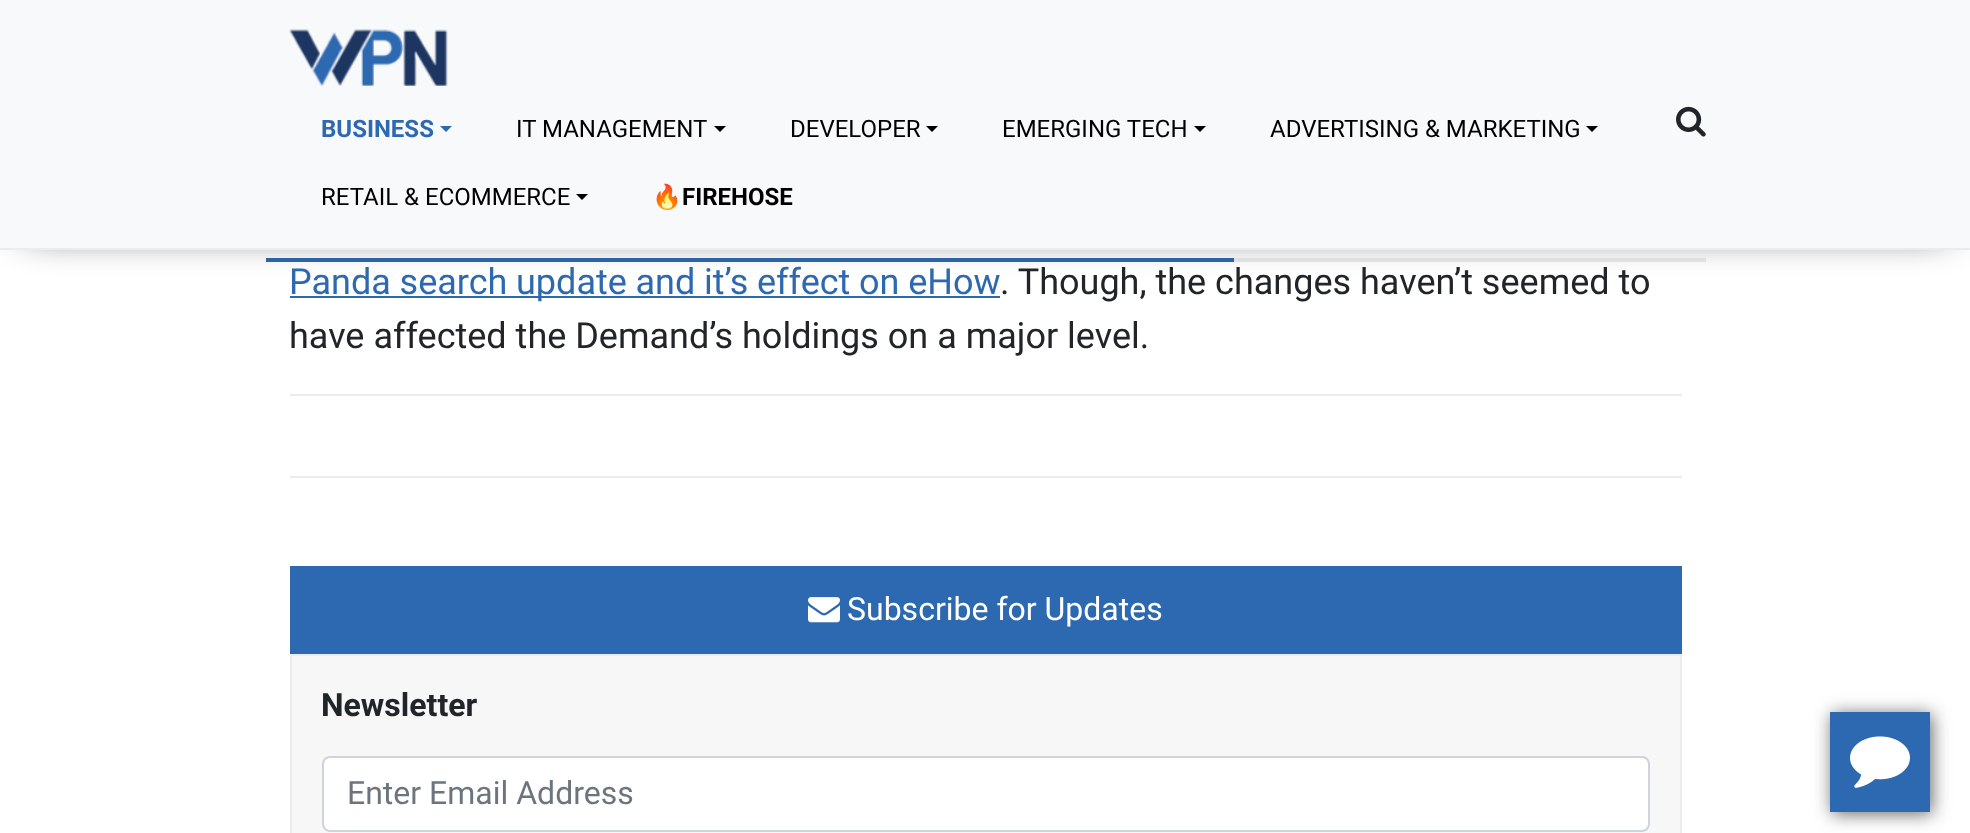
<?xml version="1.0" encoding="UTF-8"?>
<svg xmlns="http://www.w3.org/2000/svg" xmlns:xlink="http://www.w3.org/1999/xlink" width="1970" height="833">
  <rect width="100%" height="100%" fill="#ffffff" />
  <rect x="1234" y="258" width="472" height="4" fill="#ececec" />
  <rect x="266" y="258" width="968" height="4" fill="#2d69b0" />
  <rect x="26" y="24" width="1922" height="204" fill="#000000" filter="blur(20px)" />
  <rect y="248" width="1970" height="2" fill="#ececec" />
  <rect width="1970" height="248" fill="#f8f9fa" />
  <image x="289" y="29" width="159" height="57" xlink:href="image1.png" />
  <path d="M 440 126 h 12 l -6 6 z" fill="#2d69b0" />
  <path d="M 714 126 h 12 l -6 6 z" fill="#000000" />
  <path d="M 926 126 h 12 l -6 6 z" fill="#000000" />
  <path d="M 1194 126 h 12 l -6 6 z" fill="#000000" />
  <path d="M 1586 126 h 12 l -6 6 z" fill="#000000" />
  <path d="M 576 194 h 12 l -6 6 z" fill="#000000" />
  <image x="1676" y="106" width="30" height="31" xlink:href="image2.png" />
  <rect x="290" y="296" width="710" height="2" fill="#2d69b0" />
  <rect x="290" y="394" width="1392" height="2" fill="#ececec" />
  <rect x="290" y="476" width="1392" height="2" fill="#ececec" />
  <rect x="290" y="566" width="1392" height="88" fill="#2d69b0" />
  <image x="808" y="597" width="32" height="26" xlink:href="image3.png" />
  <rect x="291" y="655" width="1390" height="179" fill="#f7f7f7" stroke="#ececec" stroke-width="2" />
  <rect x="323" y="757" width="1326" height="74" rx="7" fill="#ffffff" stroke="#ced4da" stroke-width="2" />
  <rect x="1832" y="714" width="100" height="100" fill="#666666" filter="blur(9px)" />
  <rect x="1830" y="712" width="100" height="100" fill="#2d69b0" />
  <image x="1850" y="736" width="60" height="52" xlink:href="image4.png" />
  <text x="321" y="137" style="font-family: Roboto; font-size: 24px; font-weight: bold; fill: #2d69b0">BUSINESS</text>
  <text x="516" y="137" style="font-family: Roboto; font-size: 24px; fill: #000000">IT MANAGEMENT</text>
  <text x="790" y="137" style="font-family: Roboto; font-size: 24px; fill: #000000">DEVELOPER</text>
  <text x="1002" y="137" style="font-family: Roboto; font-size: 24px; fill: #000000">EMERGING TECH</text>
  <text x="1270" y="137" style="font-family: Roboto; font-size: 24px; fill: #000000">ADVERTISING &amp; MARKETING</text>
  <text x="321" y="205" style="font-family: Roboto; font-size: 24px; fill: #000000">RETAIL &amp; ECOMMERCE</text>
  <text x="652" y="205" style="font-family: Noto Color Emoji; font-size: 24px; font-weight: bold; fill: #000000">🔥</text>
  <text x="682" y="205" style="font-family: Roboto; font-size: 24px; font-weight: bold; fill: #000000">FIREHOSE</text>
  <text x="289" y="294" word-spacing="-0.25" style="font-family: Roboto; font-size: 36px; fill: #2d69b0">Panda search update and it’s effect on eHow</text>
  <text x="1000" y="294" style="font-family: Roboto; font-size: 36px; fill: #212529">. Though, the changes haven’t seemed to</text>
  <text x="289" y="348" style="font-family: Roboto; font-size: 36px; fill: #212529">have affected the Demand’s holdings on a major level.</text>
  <text x="847" y="620" style="font-family: Roboto; font-size: 32px; fill: #ffffff">Subscribe for Updates</text>
  <text x="321" y="716" style="font-family: Roboto; font-size: 32px; font-weight: bold; fill: #212529">Newsletter</text>
  <text x="347" y="804" style="font-family: Roboto; font-size: 32px; fill: #6c757d">Enter Email Address</text>
</svg>
